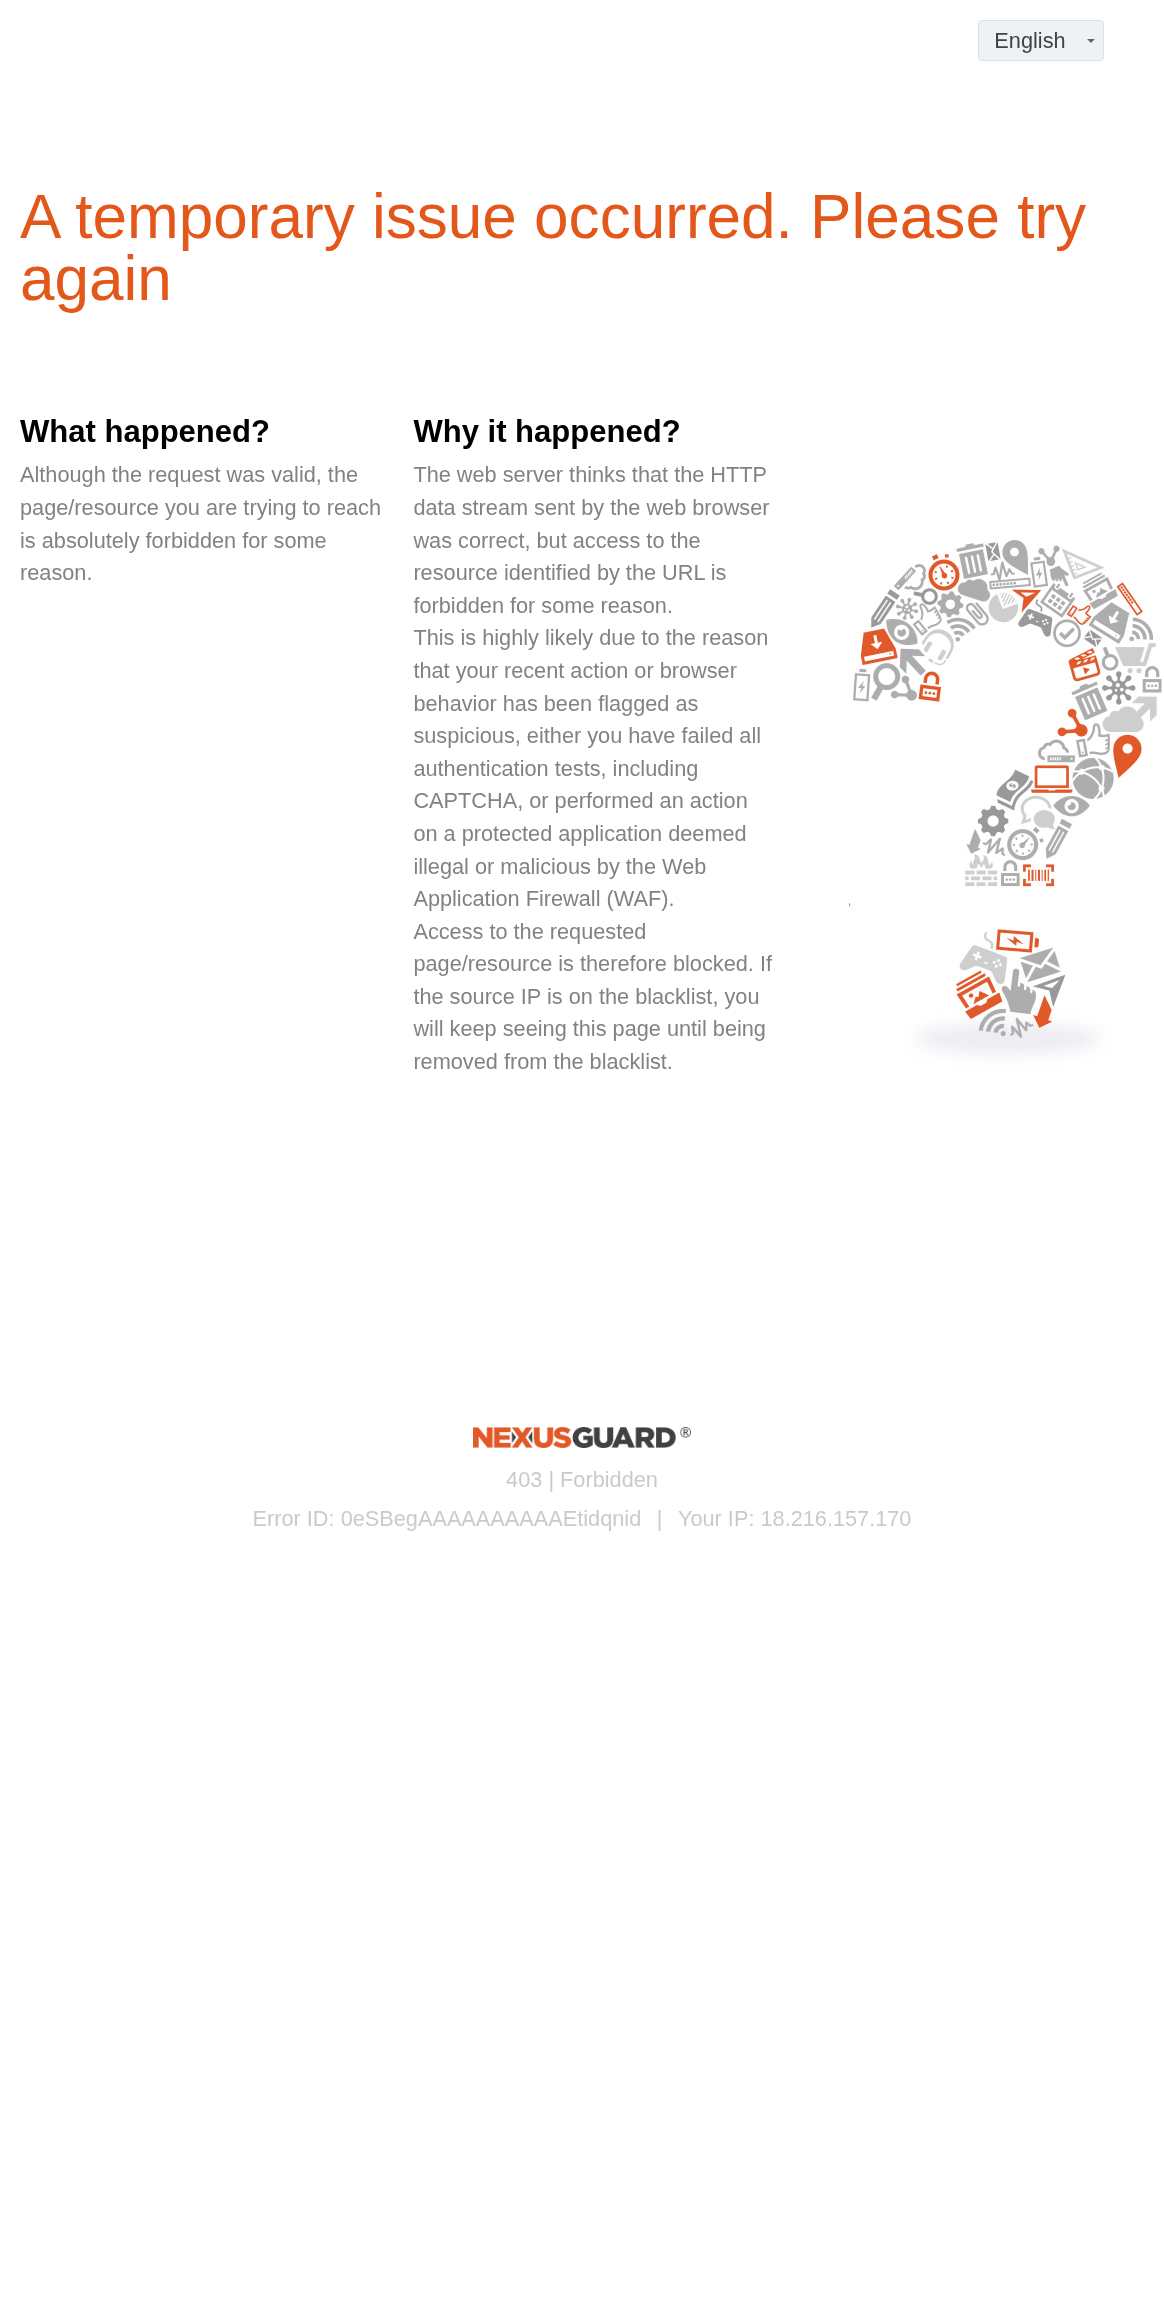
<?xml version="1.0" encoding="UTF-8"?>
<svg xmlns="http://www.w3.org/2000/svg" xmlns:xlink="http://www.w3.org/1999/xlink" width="1164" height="2319">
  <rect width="100%" height="100%" fill="#ffffff" />
  <image x="20" y="20" width="1142" height="1511" xlink:href="image1.png" />
</svg>
